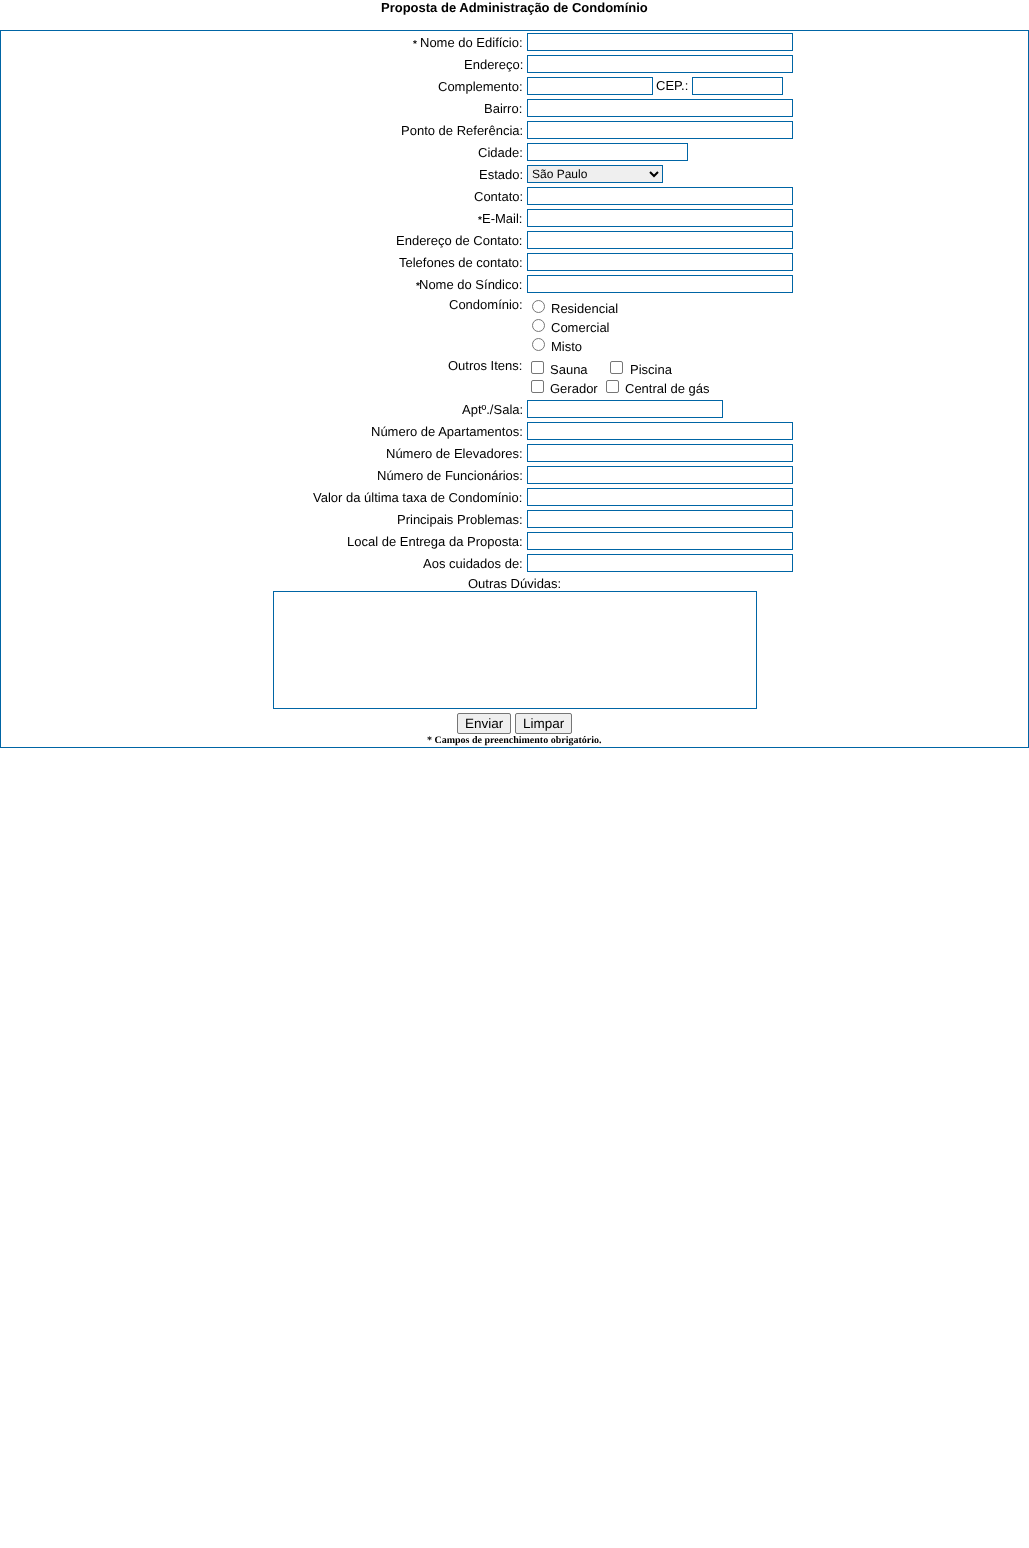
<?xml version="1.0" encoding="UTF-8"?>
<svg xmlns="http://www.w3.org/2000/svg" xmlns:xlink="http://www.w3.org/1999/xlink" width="1029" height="1548">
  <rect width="100%" height="100%" fill="#ffffff" />
  <rect y="30" width="1029" height="1" fill="#0065a5" />
  <rect x="1028" y="30" width="1" height="718" fill="#0065a5" />
  <rect y="747" width="1029" height="1" fill="#0065a5" />
  <rect y="30" width="1" height="718" fill="#0065a5" />
  <rect x="527.5" y="33.5" width="265" height="17" fill="none" stroke="#0065a5" />
  <rect x="527.5" y="55.5" width="265" height="17" fill="none" stroke="#0065a5" />
  <rect x="527.5" y="77.5" width="125" height="17" fill="none" stroke="#0065a5" />
  <rect x="692.5" y="77.5" width="90" height="17" fill="none" stroke="#0065a5" />
  <rect x="527.5" y="99.5" width="265" height="17" fill="none" stroke="#0065a5" />
  <rect x="527.5" y="121.5" width="265" height="17" fill="none" stroke="#0065a5" />
  <rect x="527.5" y="143.5" width="160" height="17" fill="none" stroke="#0065a5" />
  <rect x="527.5" y="165.5" width="135" height="17" fill="#efefef" stroke="#0065a5" />
  <path d="M 650 172 l 4 4 l 4 -4" fill="none" stroke="#000000" stroke-width="2" />
  <rect x="527.5" y="187.5" width="265" height="17" fill="none" stroke="#0065a5" />
  <rect x="527.5" y="209.5" width="265" height="17" fill="none" stroke="#0065a5" />
  <rect x="527.5" y="231.5" width="265" height="17" fill="none" stroke="#0065a5" />
  <rect x="527.5" y="253.5" width="265" height="17" fill="none" stroke="#0065a5" />
  <rect x="527.5" y="275.5" width="265" height="17" fill="none" stroke="#0065a5" />
  <circle cx="538.5" cy="306.5" r="6" fill="none" stroke="#767676" />
  <circle cx="538.5" cy="325.5" r="6" fill="none" stroke="#767676" />
  <circle cx="538.5" cy="344.5" r="6" fill="none" stroke="#767676" />
  <rect x="531.5" y="361.5" width="12" height="12" rx="1.5" fill="none" stroke="#767676" />
  <rect x="610.5" y="361.5" width="12" height="12" rx="1.5" fill="none" stroke="#767676" />
  <rect x="531.5" y="380.5" width="12" height="12" rx="1.5" fill="none" stroke="#767676" />
  <rect x="606.5" y="380.5" width="12" height="12" rx="1.5" fill="none" stroke="#767676" />
  <rect x="527.5" y="400.5" width="195" height="17" fill="none" stroke="#0065a5" />
  <rect x="527.5" y="422.5" width="265" height="17" fill="none" stroke="#0065a5" />
  <rect x="527.5" y="444.5" width="265" height="17" fill="none" stroke="#0065a5" />
  <rect x="527.5" y="466.5" width="265" height="17" fill="none" stroke="#0065a5" />
  <rect x="527.5" y="488.5" width="265" height="17" fill="none" stroke="#0065a5" />
  <rect x="527.5" y="510.5" width="265" height="17" fill="none" stroke="#0065a5" />
  <rect x="527.5" y="532.5" width="265" height="17" fill="none" stroke="#0065a5" />
  <rect x="527.5" y="554.5" width="265" height="17" fill="none" stroke="#0065a5" />
  <rect x="273.5" y="591.5" width="483" height="117" fill="none" stroke="#0065a5" />
  <rect x="457.5" y="713.5" width="53" height="20" rx="1.5" fill="#efefef" stroke="#767676" />
  <rect x="515.5" y="713.5" width="56" height="20" rx="1.5" fill="#efefef" stroke="#767676" />
  <text x="381" y="12" style="font-family: Liberation Sans; font-size: 13px; font-weight: bold; fill: #000000">Proposta de Administração de Condomínio</text>
  <text x="413" y="47" style="font-family: Liberation Sans; font-size: 10px; font-weight: bold; fill: #000000">*</text>
  <text x="420" y="47" style="font-family: Liberation Sans; font-size: 13px; fill: #000000">Nome do Edifício:</text>
  <text x="464" y="69" style="font-family: Liberation Sans; font-size: 13px; fill: #000000">Endereço:</text>
  <text x="438" y="91" style="font-family: Liberation Sans; font-size: 13px; fill: #000000">Complemento:</text>
  <text x="656" y="90" style="font-family: Liberation Sans; font-size: 13px; fill: #000000">CEP.:</text>
  <text x="484" y="113" style="font-family: Liberation Sans; font-size: 13px; fill: #000000">Bairro:</text>
  <text x="401" y="135" style="font-family: Liberation Sans; font-size: 13px; fill: #000000">Ponto de Referência:</text>
  <text x="478" y="157" style="font-family: Liberation Sans; font-size: 13px; fill: #000000">Cidade:</text>
  <text x="479" y="179" style="font-family: Liberation Sans; font-size: 13px; fill: #000000">Estado:</text>
  <text x="532" y="178" style="font-family: Liberation Sans; font-size: 12px; fill: #000000">São Paulo</text>
  <text x="474" y="201" style="font-family: Liberation Sans; font-size: 13px; fill: #000000">Contato:</text>
  <text x="478" y="223" style="font-family: Liberation Sans; font-size: 10px; font-weight: bold; fill: #000000">*</text>
  <text x="482" y="223" style="font-family: Liberation Sans; font-size: 13px; fill: #000000">E-Mail:</text>
  <text x="396" y="245" style="font-family: Liberation Sans; font-size: 13px; fill: #000000">Endereço de Contato:</text>
  <text x="399" y="267" style="font-family: Liberation Sans; font-size: 13px; fill: #000000">Telefones de contato:</text>
  <text x="416" y="289" style="font-family: Liberation Sans; font-size: 10px; font-weight: bold; fill: #000000">*</text>
  <text x="419" y="289" style="font-family: Liberation Sans; font-size: 13px; fill: #000000">Nome do Síndico:</text>
  <text x="449" y="309" style="font-family: Liberation Sans; font-size: 13px; fill: #000000">Condomínio:</text>
  <text x="551" y="313" style="font-family: Liberation Sans; font-size: 13px; fill: #000000">Residencial</text>
  <text x="551" y="332" style="font-family: Liberation Sans; font-size: 13px; fill: #000000">Comercial</text>
  <text x="551" y="351" style="font-family: Liberation Sans; font-size: 13px; fill: #000000">Misto</text>
  <text x="448" y="370" style="font-family: Liberation Sans; font-size: 13px; fill: #000000">Outros Itens:</text>
  <text x="550" y="374" style="font-family: Liberation Sans; font-size: 13px; fill: #000000">Sauna</text>
  <text x="630" y="374" style="font-family: Liberation Sans; font-size: 13px; fill: #000000">Piscina</text>
  <text x="550" y="393" style="font-family: Liberation Sans; font-size: 13px; fill: #000000">Gerador</text>
  <text x="625" y="393" style="font-family: Liberation Sans; font-size: 13px; fill: #000000">Central de gás</text>
  <text x="462" y="414" style="font-family: Liberation Sans; font-size: 13px; fill: #000000">Aptº./Sala:</text>
  <text x="371" y="436" style="font-family: Liberation Sans; font-size: 13px; fill: #000000">Número de Apartamentos:</text>
  <text x="386" y="458" style="font-family: Liberation Sans; font-size: 13px; fill: #000000">Número de Elevadores:</text>
  <text x="377" y="480" style="font-family: Liberation Sans; font-size: 13px; fill: #000000">Número de Funcionários:</text>
  <text x="313" y="502" style="font-family: Liberation Sans; font-size: 13px; fill: #000000">Valor da última taxa de Condomínio:</text>
  <text x="397" y="524" style="font-family: Liberation Sans; font-size: 13px; fill: #000000">Principais Problemas:</text>
  <text x="347" y="546" style="font-family: Liberation Sans; font-size: 13px; fill: #000000">Local de Entrega da Proposta:</text>
  <text x="423" y="568" style="font-family: Liberation Sans; font-size: 13px; fill: #000000">Aos cuidados de:</text>
  <text x="468" y="588" style="font-family: Liberation Sans; font-size: 13px; fill: #000000">Outras Dúvidas:</text>
  <text x="465" y="728" style="font-family: Liberation Sans; font-size: 13.5px; fill: #000000">Enviar</text>
  <text x="523" y="728" style="font-family: Liberation Sans; font-size: 13.5px; fill: #000000">Limpar</text>
  <text x="427" y="743" style="font-family: Liberation Serif; font-size: 10px; font-weight: bold; fill: #000000">* Campos de preenchimento obrigatório.</text>
</svg>
